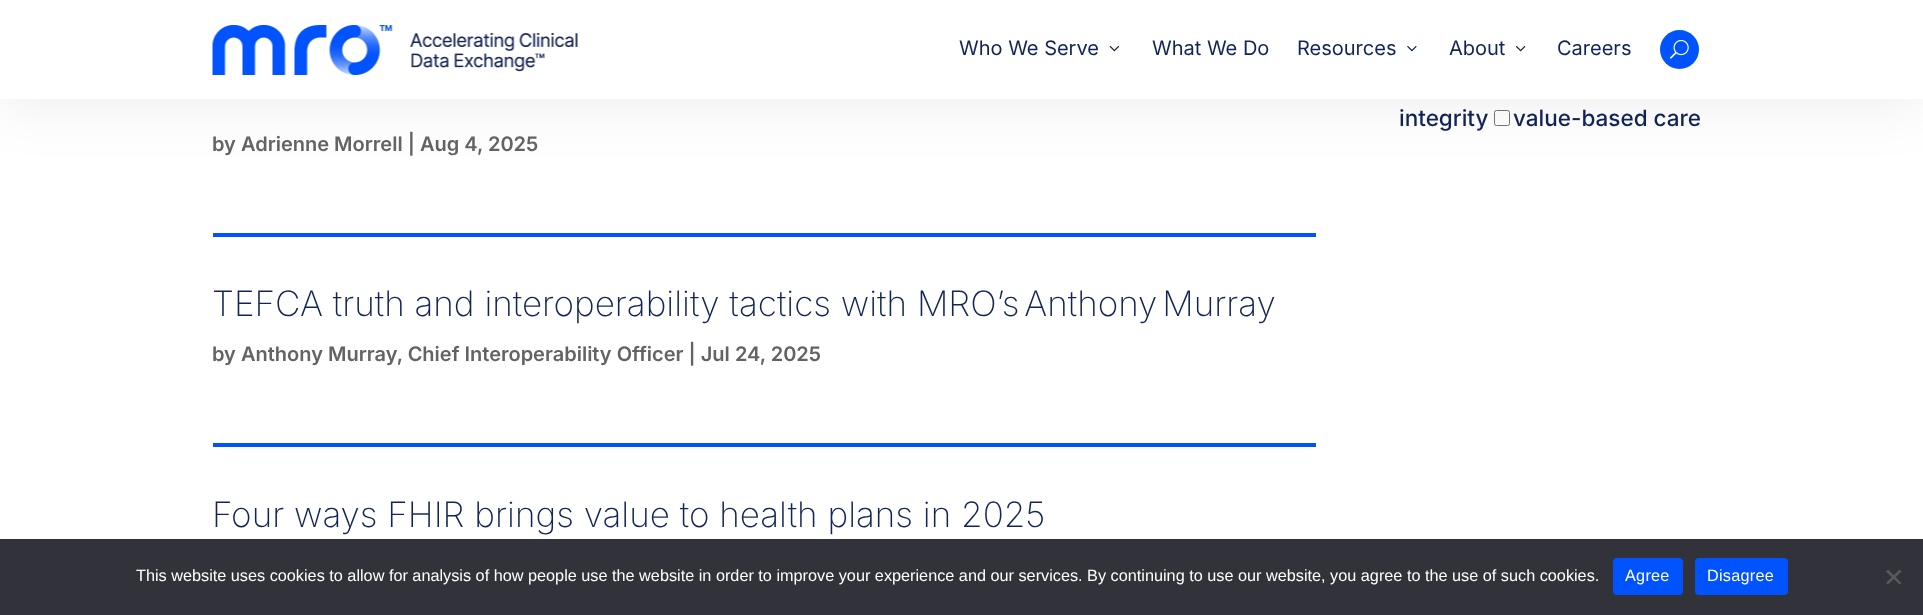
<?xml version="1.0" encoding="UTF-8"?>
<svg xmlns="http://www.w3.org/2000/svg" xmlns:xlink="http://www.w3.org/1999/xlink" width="1923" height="615">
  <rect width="100%" height="100%" fill="#ffffff" />
  <rect x="1494.5" y="110.5" width="15" height="15" rx="2" fill="none" stroke="#767676" />
  <rect y="3" width="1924" height="98" fill="#000000" fill-opacity="0.08" filter="blur(31px)" />
  <rect width="1923" height="99" fill="#ffffff" />
  <image x="212" y="25" width="366" height="50" xlink:href="image1.png" />
  <image x="1109" y="46" width="10" height="6" xlink:href="image2.png" />
  <image x="1407" y="46" width="10" height="6" xlink:href="image3.png" />
  <image x="1516" y="46" width="10" height="6" xlink:href="image4.png" />
  <circle cx="1679.5" cy="49.5" r="19.5" fill="#0153ff" />
  <image x="1670" y="39" width="19" height="20" xlink:href="image5.png" />
  <rect x="213" y="233" width="1103" height="4" fill="#0153ff" />
  <rect x="213" y="443" width="1103" height="4" fill="#0153ff" />
  <rect y="539" width="1923" height="76" fill="#32323a" />
  <rect x="1613" y="558" width="70" height="37" rx="4" fill="#0153ff" />
  <rect x="1695" y="558" width="93" height="37" rx="4" fill="#0153ff" />
  <path d="M 1899.5 569.5 l 2 2 l -13.5 13 l -2 -1.5 z" fill="#59595d" />
  <path d="M 1886 571.5 l 2 -2 l 13.5 13.5 l -2 1.5 z" fill="#59595d" />
  <text x="959" y="55" style="font-family: Inter; font-size: 20px; fill: #122455">Who We Serve</text>
  <text x="1152" y="55" style="font-family: Inter; font-size: 20px; fill: #122455">What We Do</text>
  <text x="1297" y="55" style="font-family: Inter; font-size: 20px; fill: #122455">Resources</text>
  <text x="1449" y="55" style="font-family: Inter; font-size: 20px; fill: #122455">About</text>
  <text x="1557" y="55" style="font-family: Inter; font-size: 20px; fill: #122455">Careers</text>
  <text x="1399" y="126" style="font-family: Inter; font-size: 22.5px; font-weight: 500; fill: #122455">integrity</text>
  <text x="1513" y="126" style="font-family: Inter; font-size: 22.5px; font-weight: 500; fill: #122455">value-based care</text>
  <text x="212" y="151" style="font-family: Inter; font-size: 20px; font-weight: 600; fill: #636362">by Adrienne Morrell | Aug 4, 2025</text>
  <text x="212" y="316" style="font-family: Inter; font-size: 35px; font-weight: 200; fill: #122455">TEFCA truth and interoperability tactics with MRO’s Anthony Murray</text>
  <text x="212" y="361" style="font-family: Inter; font-size: 20px; font-weight: 600; fill: #636362">by Anthony Murray, Chief Interoperability Officer | Jul 24, 2025</text>
  <text x="212" y="527" style="font-family: Inter; font-size: 35px; font-weight: 200; fill: #122455">Four ways FHIR brings value to health plans in 2025</text>
  <text x="136" y="581" style="font-family: Liberation Sans; font-size: 16.25px; fill: #ffffff">This website uses cookies to allow for analysis of how people use the website in order to improve your experience and our services. By continuing to use our website, you agree to the use of such cookies.</text>
  <text x="1625" y="581" style="font-family: Liberation Sans; font-size: 16.25px; letter-spacing: 0.25px; fill: #ffffff">Agree</text>
  <text x="1707" y="581" style="font-family: Liberation Sans; font-size: 16.25px; letter-spacing: 0.25px; fill: #ffffff">Disagree</text>
</svg>
